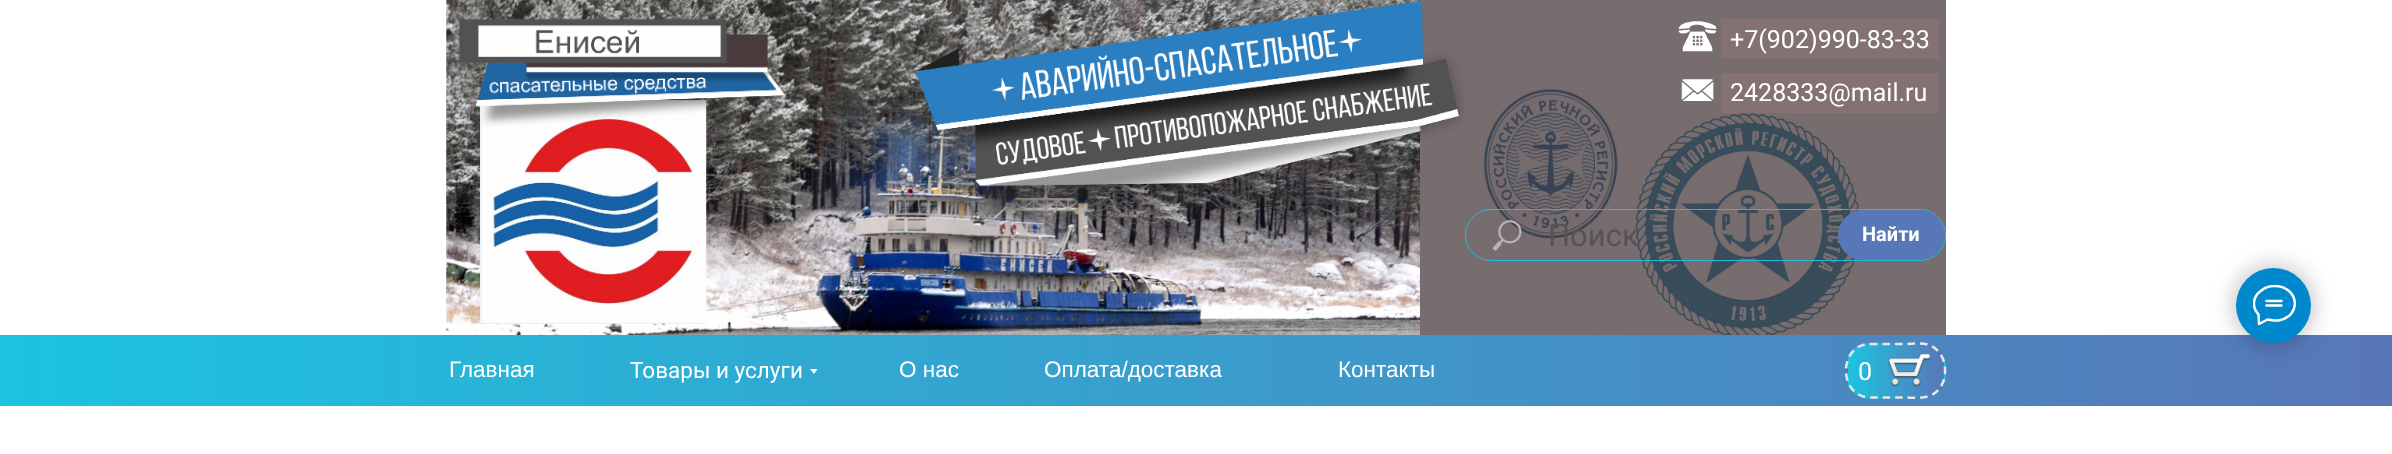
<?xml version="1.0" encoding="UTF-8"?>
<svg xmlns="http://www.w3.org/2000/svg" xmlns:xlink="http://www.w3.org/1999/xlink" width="2392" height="454">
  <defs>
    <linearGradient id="g1" gradientUnits="userSpaceOnUse" x1="-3.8" y1="371" x2="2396" y2="371"><stop offset="0" stop-color="#1bc4e0" /><stop offset="0.99" stop-color="#5877b8" /></linearGradient>
    <clipPath id="clip1"><rect x="1845" y="343" width="101" height="56" rx="25" /></clipPath>
    <linearGradient id="g2" gradientUnits="userSpaceOnUse" x1="1751" y1="371" x2="1848" y2="371"><stop offset="0" stop-color="#1bc4e0" /><stop offset="0.99" stop-color="#5877b8" /></linearGradient>
    <linearGradient id="g3" gradientUnits="userSpaceOnUse" x1="1848" y1="371" x2="1944" y2="371"><stop offset="0" stop-color="#1bc4e0" /><stop offset="0.99" stop-color="#5877b8" /></linearGradient>
    <linearGradient id="g4" gradientUnits="userSpaceOnUse" x1="1944" y1="371" x2="2040" y2="371"><stop offset="0" stop-color="#1bc4e0" /><stop offset="0.99" stop-color="#5877b8" /></linearGradient>
    <clipPath id="clip2"><rect x="2253" y="285" width="43" height="40" /></clipPath>
  </defs>
  <rect width="100%" height="100%" fill="#ffffff" />
  <rect x="1420" width="526" height="335" fill="#776d6e" />
  <image x="446" y="0" width="974" height="335" xlink:href="image1.png" />
  <image x="480" y="100" width="227" height="224" xlink:href="image6.png" />
  <image x="458" y="18" width="328" height="108" xlink:href="image2.png" />
  <image x="915" y="1" width="550" height="226" xlink:href="image3.png" />
  <image x="1678" y="21" width="39" height="31" xlink:href="image4.png" />
  <rect x="1721" y="19" width="218" height="40" fill="#847273" />
  <image x="1681" y="79" width="33" height="22" xlink:href="image5.png" />
  <rect x="1721" y="73" width="218" height="40" fill="#847273" />
  <image x="1483" y="88" width="135" height="151" xlink:href="image7.png" />
  <image x="1635" y="113" width="226" height="222" xlink:href="image8.png" />
  <rect x="1465.5" y="209.5" width="480" height="51" rx="25.5" fill="none" stroke="#24b9db" />
  <image x="1492" y="220" width="30" height="31" xlink:href="image9.png" />
  <rect x="1838" y="210" width="107" height="50" rx="25" fill="#5877b8" />
  <rect y="335" width="2392" height="71" fill="url(#g1)" />
  <g clip-path="url(#clip1)">
    <rect x="1845" y="356" width="3" height="30" fill="url(#g2)" />
    <rect x="1848" y="343" width="96" height="56" fill="url(#g3)" />
    <rect x="1944" y="358" width="2" height="26" fill="url(#g4)" />
  </g>
  <path d="M 1870 344 h 34 c 8.5 0 18.5 -2 26.5 1.5 c 19.5 8.5 19.5 42 0 50 c -8 3.5 -18 2 -26.5 2 h -34 c -32.5 -1 -31.5 -53.5 0 -53.5 z" fill="none" stroke="#e8e8e8" stroke-width="2.5" stroke-dasharray="7.5 5" />
  <path d="M 810 369 h 7.5 l -3.5 5 z" fill="#ffffff" />
  <image x="1888" y="353" width="43" height="34" xlink:href="image10.png" />
  <rect x="2236" y="268" width="75" height="75" rx="37.5" fill="#000000" fill-opacity="0.3" filter="blur(12.5px)" />
  <circle cx="2273.5" cy="305.5" r="37.5" fill="#0088cc" />
  <g clip-path="url(#clip2)">
    <path d="M 2266.5 301 h 15 m -15 4.5 h 15 m -23 9 c -6.5 -6.5 -6 -17 1.5 -23 c 4 -3.5 9 -5.5 14.5 -5.5 c 24 0 28.5 30 4 34.5 c -4 0.5 -7 -0.5 -11 -1 l -8.5 4.5 z" fill="none" stroke="#ffffff" stroke-width="2.5" stroke-linecap="round" stroke-linejoin="round" />
  </g>
  <text x="1730" y="48" style="font-family: Roboto; font-size: 25px; fill: #ffffff">+7(902)990-83-33</text>
  <text x="1730" y="101" style="font-family: Roboto; font-size: 25px; fill: #ffffff">2428333@mail.ru</text>
  <text x="1548" y="246" style="font-family: Roboto; font-size: 31px; fill: #575354">Поиск</text>
  <text x="1862" y="241" style="font-family: Roboto; font-size: 20px; font-weight: bold; fill: #ffffff">Найти</text>
  <text x="449" y="377" style="font-family: Liberation Sans; font-size: 22.5px; fill: #ffffff">Главная</text>
  <text x="630" y="378" style="font-family: Roboto; font-size: 22.5px; fill: #ffffff">Товары и услуги</text>
  <text x="899" y="377" style="font-family: Liberation Sans; font-size: 22.5px; fill: #ffffff">О нас</text>
  <text x="1044" y="377" style="font-family: Liberation Sans; font-size: 22.5px; fill: #ffffff">Оплата/доставка</text>
  <text x="1338" y="377" style="font-family: Liberation Sans; font-size: 22.5px; fill: #ffffff">Контакты</text>
  <text x="1858" y="380" style="font-family: Roboto; font-size: 25px; fill: #ffffff">0</text>
</svg>
